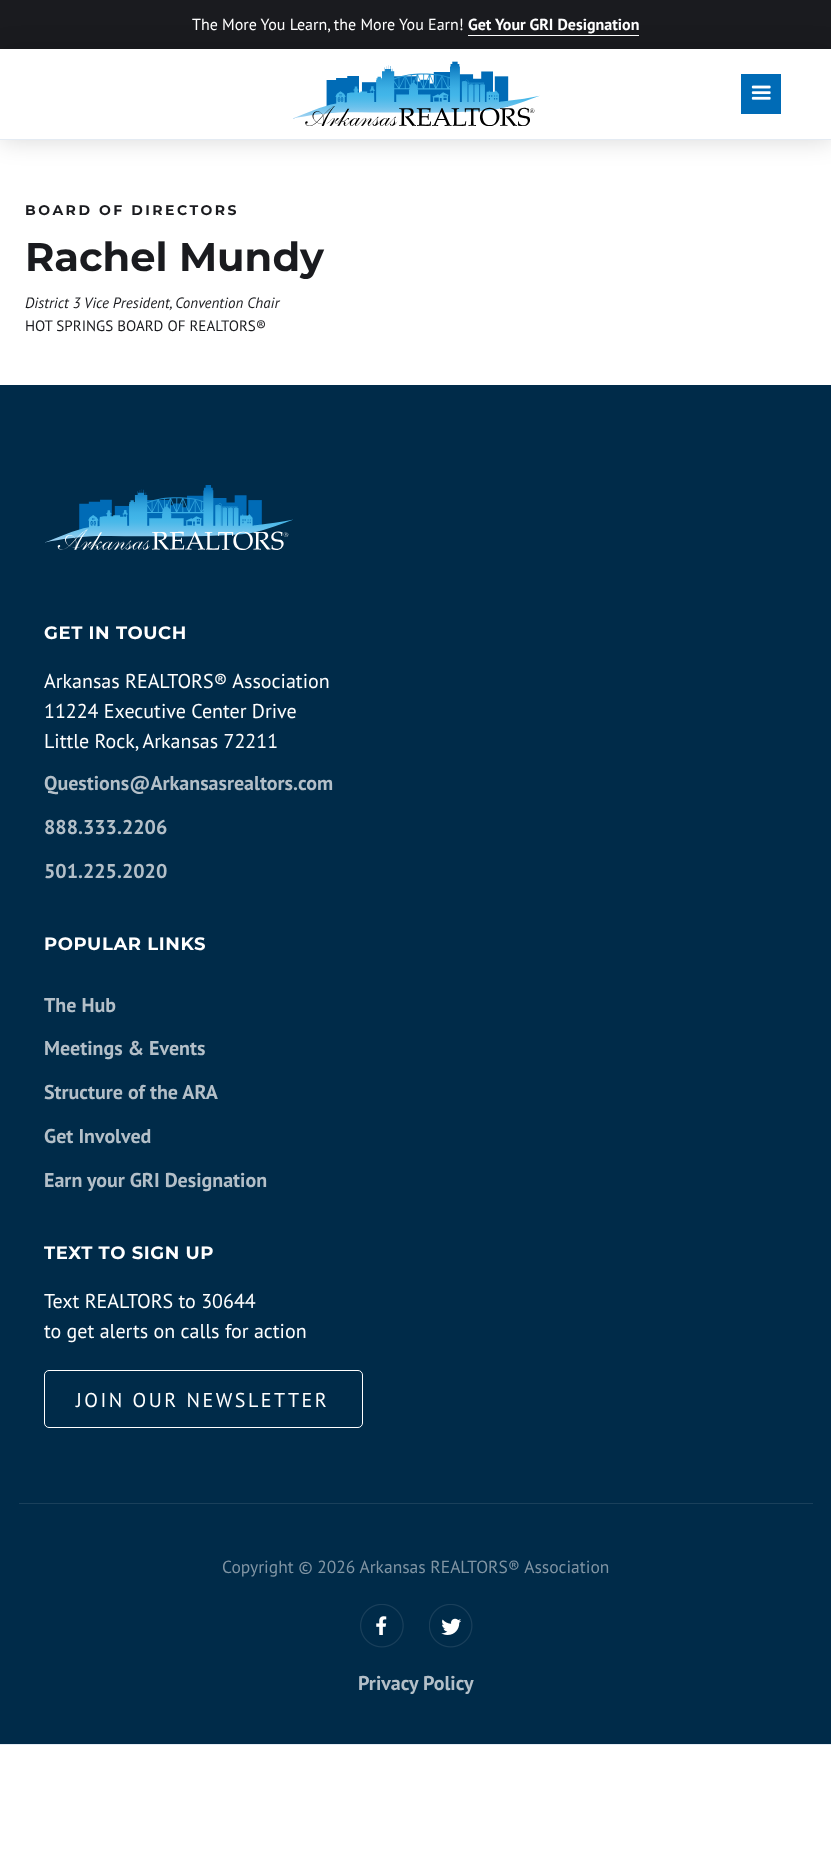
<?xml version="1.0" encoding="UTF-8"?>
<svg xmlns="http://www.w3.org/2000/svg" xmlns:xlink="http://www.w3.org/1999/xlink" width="831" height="1868">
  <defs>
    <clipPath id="clip1"><path d="M 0 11 h 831 v 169 h -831 z m 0 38 h 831 v 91 h -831 z" clip-rule="evenodd" /></clipPath>
  </defs>
  <rect width="100%" height="100%" fill="#ffffff" />
  <rect width="831" height="49" fill="#1a1b1f" />
  <g clip-path="url(#clip1)">
    <rect x="1" y="50" width="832" height="91" fill="#000000" fill-opacity="0.15" filter="blur(12.5px)" />
  </g>
  <rect y="139" width="831" height="1" fill="#e4ebf3" />
  <image x="293" y="61" width="247" height="65" xlink:href="image1.png" />
  <rect x="741" y="74" width="40" height="40" fill="#006bb6" />
  <image x="751" y="85" width="20" height="15" xlink:href="image2.png" />
  <rect x="468" y="35" width="171" height="1" fill="#ffffff" />
  <rect y="385" width="831" height="1359" fill="#002b49" />
  <rect y="1744" width="831" height="1" fill="#e4ebf3" />
  <image x="45" y="485" width="248" height="65" xlink:href="image3.png" />
  <rect x="44.5" y="1370.5" width="318" height="57" rx="4.5" fill="none" stroke="#ffffff" />
  <rect x="19" y="1503" width="794" height="1" fill="#1a405b" />
  <image x="360" y="1604" width="44" height="44" xlink:href="image4.png" />
  <image x="429" y="1604" width="44" height="44" xlink:href="image5.png" />
  <text x="192" y="30" style="font-family: PT Sans; font-size: 16px; fill: #ffffff">The More You Learn, the More You Earn!</text>
  <text x="468" y="30" style="font-family: PT Sans; font-size: 16px; font-weight: bold; fill: #ffffff">Get Your GRI Designation</text>
  <text x="25" y="215" style="font-family: Montserrat; font-size: 14px; font-weight: bold; letter-spacing: 2.5px; fill: #1a1b1f">BOARD OF DIRECTORS</text>
  <text x="25" y="271" style="font-family: Montserrat; font-size: 40px; font-weight: bold; fill: #1a1b1f">Rachel Mundy</text>
  <text x="25" y="308" style="font-family: PT Sans; font-size: 15px; font-style: italic; fill: #1a1b1f">District 3 Vice President, Convention Chair</text>
  <text x="25" y="331" style="font-family: PT Sans; font-size: 15px; fill: #1a1b1f">HOT SPRINGS BOARD OF REALTORS®</text>
  <text x="44" y="639" style="font-family: Montserrat; font-size: 18px; font-weight: bold; letter-spacing: 0.6px; fill: #ffffff">GET IN TOUCH</text>
  <text x="44" y="688" style="font-family: PT Sans; font-size: 20px; fill: #ffffff">Arkansas REALTORS® Association</text>
  <text x="44" y="718" style="font-family: PT Sans; font-size: 20px; fill: #ffffff">11224 Executive Center Drive</text>
  <text x="44" y="748" style="font-family: PT Sans; font-size: 20px; fill: #ffffff">Little Rock, Arkansas 72211</text>
  <text x="44" y="790" style="font-family: PT Sans; font-size: 20px; font-weight: bold; fill: #b3bfc8">Questions@Arkansasrealtors.com</text>
  <text x="44" y="834" style="font-family: PT Sans; font-size: 20px; font-weight: bold; fill: #b3bfc8">888.333.2206</text>
  <text x="44" y="878" style="font-family: PT Sans; font-size: 20px; font-weight: bold; fill: #b3bfc8">501.225.2020</text>
  <text x="44" y="950" style="font-family: Montserrat; font-size: 18px; font-weight: bold; letter-spacing: 0.6px; fill: #ffffff">POPULAR LINKS</text>
  <text x="44" y="1012" style="font-family: PT Sans; font-size: 20px; font-weight: bold; fill: #b3bfc8">The Hub</text>
  <text x="44" y="1055" style="font-family: PT Sans; font-size: 20px; font-weight: bold; fill: #b3bfc8">Meetings &amp; Events</text>
  <text x="44" y="1099" style="font-family: PT Sans; font-size: 20px; font-weight: bold; fill: #b3bfc8">Structure of the ARA</text>
  <text x="44" y="1143" style="font-family: PT Sans; font-size: 20px; font-weight: bold; fill: #b3bfc8">Get Involved</text>
  <text x="44" y="1187" style="font-family: PT Sans; font-size: 20px; font-weight: bold; fill: #b3bfc8">Earn your GRI Designation</text>
  <text x="44" y="1259" style="font-family: Montserrat; font-size: 18px; font-weight: bold; letter-spacing: 0.6px; fill: #ffffff">TEXT TO SIGN UP</text>
  <text x="44" y="1308" style="font-family: PT Sans; font-size: 20px; fill: #ffffff">Text REALTORS to 30644</text>
  <text x="44" y="1338" style="font-family: PT Sans; font-size: 20px; fill: #ffffff">to get alerts on calls for action</text>
  <text x="76" y="1407" style="font-family: PT Sans; font-size: 20px; letter-spacing: 2.5px; fill: #ffffff">JOIN OUR NEWSLETTER</text>
  <text x="222" y="1573" style="font-family: PT Sans; font-size: 17.5px; fill: #8095a4">Copyright © 2026 Arkansas REALTORS® Association</text>
  <text x="358" y="1690" style="font-family: PT Sans; font-size: 20px; font-weight: bold; fill: #b3bfc8">Privacy Policy</text>
</svg>
